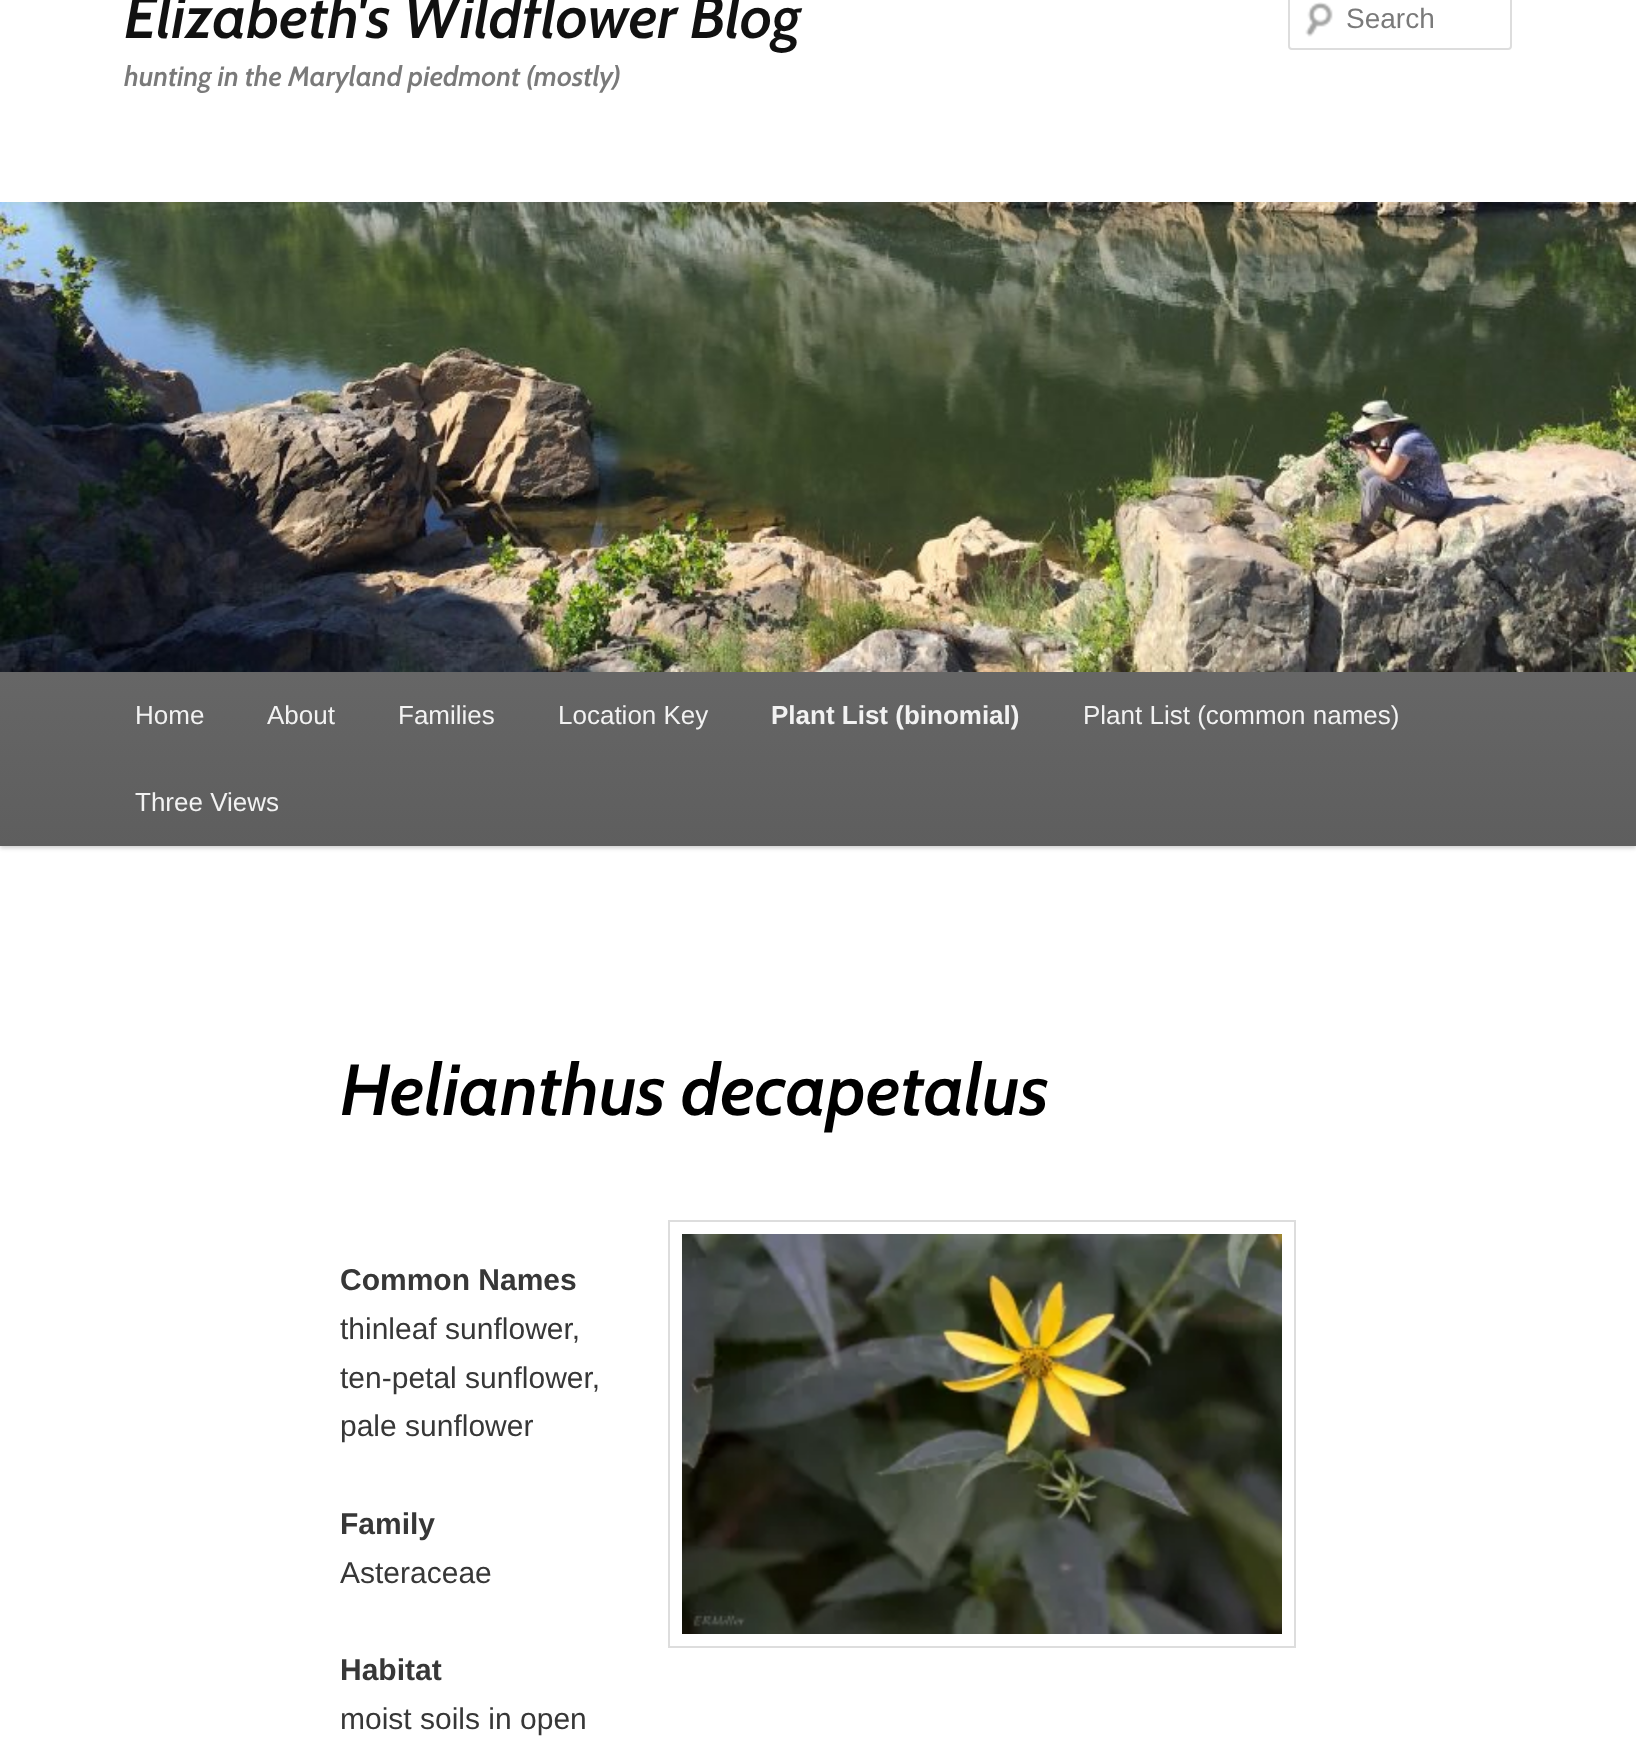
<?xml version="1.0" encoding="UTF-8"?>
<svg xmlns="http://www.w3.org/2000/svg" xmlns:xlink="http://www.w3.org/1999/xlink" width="1636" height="1741">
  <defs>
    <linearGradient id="g1" gradientUnits="userSpaceOnUse" x1="818" y1="672" x2="818" y2="846"><stop offset="0" stop-color="#666666" /><stop offset="1" stop-color="#5e5e5e" /></linearGradient>
  </defs>
  <rect width="100%" height="100%" fill="#ffffff" />
  <image x="1305" y="2" width="28" height="35" xlink:href="image1.png" />
  <rect x="1289" y="-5" width="222" height="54" rx="3" fill="none" stroke="#dddddd" stroke-width="2" />
  <rect y="674" width="1636" height="174" fill="#000000" fill-opacity="0.2" filter="blur(2px)" />
  <image x="0" y="202" width="1636" height="470" xlink:href="image2.png" />
  <rect y="672" width="1636" height="174" fill="url(#g1)" />
  <rect x="669" y="1221" width="626" height="426" fill="none" stroke="#dddddd" stroke-width="2" />
  <image x="682" y="1234" width="600" height="400" xlink:href="image3.png" />
  <text x="124" y="38" style="font-family: Cabin; font-size: 60px; font-weight: 600; font-style: italic; fill: #111111">Elizabeth's Wildflower Blog</text>
  <text x="124" y="86" style="font-family: Cabin; font-size: 28px; font-weight: 600; font-style: italic; fill: #7a7a7a">hunting in the Maryland piedmont (mostly)</text>
  <text x="1346" y="28" style="font-family: Liberation Sans; font-size: 28px; fill: #7a7a7a">Search</text>
  <text x="135" y="724" style="font-family: Liberation Sans; font-size: 26px; fill: #f2f2f2">Home</text>
  <text x="267" y="724" style="font-family: Liberation Sans; font-size: 26px; fill: #f2f2f2">About</text>
  <text x="398" y="724" style="font-family: Liberation Sans; font-size: 26px; fill: #f2f2f2">Families</text>
  <text x="558" y="724" style="font-family: Liberation Sans; font-size: 26px; fill: #f2f2f2">Location Key</text>
  <text x="771" y="724" style="font-family: Liberation Sans; font-size: 26px; font-weight: bold; fill: #f2f2f2">Plant List (binomial)</text>
  <text x="1083" y="724" style="font-family: Liberation Sans; font-size: 26px; fill: #f2f2f2">Plant List (common names)</text>
  <text x="135" y="811" style="font-family: Liberation Sans; font-size: 26px; fill: #f2f2f2">Three Views</text>
  <text x="340" y="1115" style="font-family: Cabin; font-size: 72px; font-weight: 600; font-style: italic; fill: #000000">Helianthus decapetalus</text>
  <text x="340" y="1290" style="font-family: Liberation Sans; font-size: 30px; font-weight: bold; fill: #373737">Common Names</text>
  <text x="340" y="1339" style="font-family: Liberation Sans; font-size: 30px; fill: #373737">thinleaf sunflower,</text>
  <text x="340" y="1388" style="font-family: Liberation Sans; font-size: 30px; fill: #373737">ten-petal sunflower,</text>
  <text x="340" y="1436" style="font-family: Liberation Sans; font-size: 30px; fill: #373737">pale sunflower</text>
  <text x="340" y="1534" style="font-family: Liberation Sans; font-size: 30px; font-weight: bold; fill: #373737">Family</text>
  <text x="340" y="1583" style="font-family: Liberation Sans; font-size: 30px; fill: #373737">Asteraceae</text>
  <text x="340" y="1680" style="font-family: Liberation Sans; font-size: 30px; font-weight: bold; fill: #373737">Habitat</text>
  <text x="340" y="1729" style="font-family: Liberation Sans; font-size: 30px; fill: #373737">moist soils in open</text>
</svg>
